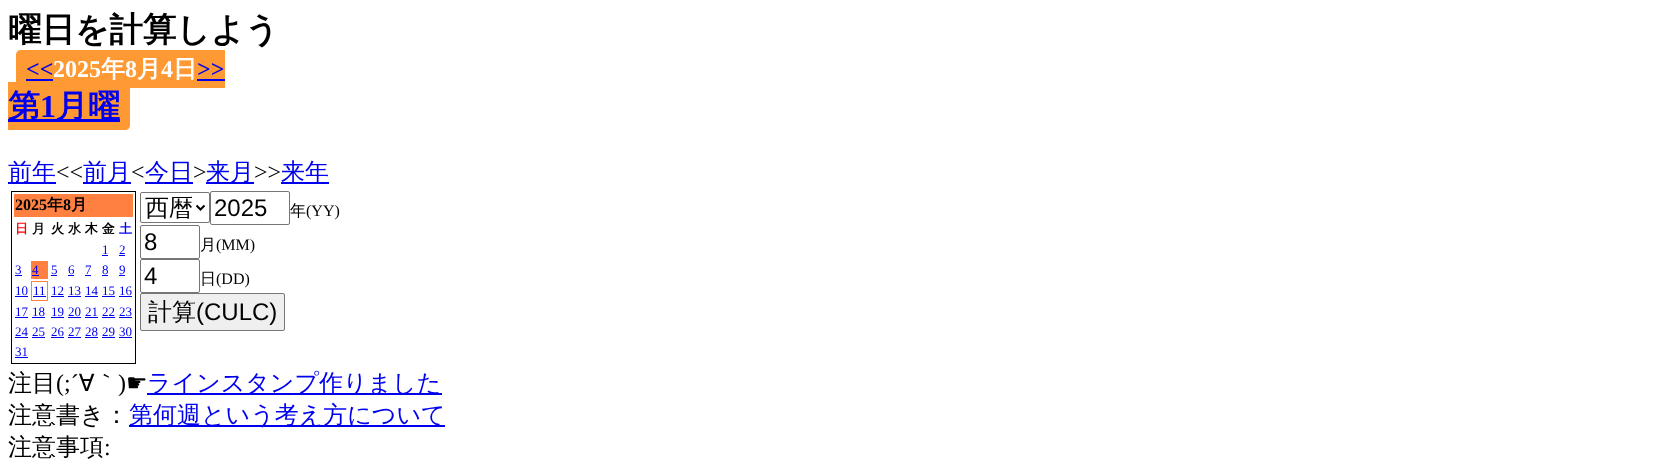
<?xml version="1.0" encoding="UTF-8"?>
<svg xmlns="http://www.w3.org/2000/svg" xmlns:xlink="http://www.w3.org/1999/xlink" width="1677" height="464">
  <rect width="100%" height="100%" fill="#ffffff" />
  <path d="M 21 50 h 32 v 38 h -32 c -3 0 -5 -2 -5 -5 v -28 c 0 -3 2 -5 5 -5 z" fill="#ff9933" />
  <rect x="26" y="79" width="27" height="2" fill="#0000ee" />
  <rect x="53" y="50" width="172" height="38" fill="#ff9933" />
  <rect x="197" y="79" width="28" height="2" fill="#0000ee" />
  <path d="M 8 82 h 117 c 3 0 5 2 5 5 v 38 c 0 3 -2 5 -5 5 h -117 z" fill="#ff9933" />
  <rect x="8" y="119" width="112" height="3" fill="#0000ee" />
  <rect x="8" y="182" width="48" height="2" fill="#0000ee" />
  <rect x="83" y="182" width="48" height="2" fill="#0000ee" />
  <rect x="145" y="182" width="48" height="2" fill="#0000ee" />
  <rect x="206" y="182" width="48" height="2" fill="#0000ee" />
  <rect x="281" y="182" width="48" height="2" fill="#0000ee" />
  <rect x="11.5" y="191.5" width="124" height="172" fill="none" stroke="#000000" />
  <rect x="14" y="194" width="119" height="23" fill="#ff8040" />
  <rect x="102" y="255" width="6" height="1" fill="#0000ee" />
  <rect x="119" y="255" width="6" height="1" fill="#0000ee" />
  <rect x="15" y="275" width="7" height="1" fill="#0000ee" />
  <rect x="31" y="261" width="17" height="18" fill="#ff8040" />
  <rect x="32" y="275" width="7" height="1" fill="#0000ee" />
  <rect x="51" y="275" width="6" height="1" fill="#0000ee" />
  <rect x="68" y="275" width="6" height="1" fill="#0000ee" />
  <rect x="85" y="275" width="6" height="1" fill="#0000ee" />
  <rect x="102" y="275" width="6" height="1" fill="#0000ee" />
  <rect x="119" y="275" width="6" height="1" fill="#0000ee" />
  <rect x="15" y="296" width="13" height="1" fill="#0000ee" />
  <rect x="31.5" y="281.5" width="16" height="19" fill="none" stroke="#ff8040" />
  <rect x="33" y="296" width="13" height="1" fill="#0000ee" />
  <rect x="51" y="296" width="13" height="1" fill="#0000ee" />
  <rect x="68" y="296" width="13" height="1" fill="#0000ee" />
  <rect x="85" y="296" width="13" height="1" fill="#0000ee" />
  <rect x="102" y="296" width="13" height="1" fill="#0000ee" />
  <rect x="119" y="296" width="13" height="1" fill="#0000ee" />
  <rect x="15" y="317" width="13" height="1" fill="#0000ee" />
  <rect x="32" y="317" width="13" height="1" fill="#0000ee" />
  <rect x="51" y="317" width="13" height="1" fill="#0000ee" />
  <rect x="68" y="317" width="13" height="1" fill="#0000ee" />
  <rect x="85" y="317" width="13" height="1" fill="#0000ee" />
  <rect x="102" y="317" width="13" height="1" fill="#0000ee" />
  <rect x="119" y="317" width="13" height="1" fill="#0000ee" />
  <rect x="15" y="337" width="13" height="1" fill="#0000ee" />
  <rect x="32" y="337" width="13" height="1" fill="#0000ee" />
  <rect x="51" y="337" width="13" height="1" fill="#0000ee" />
  <rect x="68" y="337" width="13" height="1" fill="#0000ee" />
  <rect x="85" y="337" width="13" height="1" fill="#0000ee" />
  <rect x="102" y="337" width="13" height="1" fill="#0000ee" />
  <rect x="119" y="337" width="13" height="1" fill="#0000ee" />
  <rect x="15" y="357" width="13" height="1" fill="#0000ee" />
  <rect x="140.5" y="192.5" width="69" height="30" rx="1.5" fill="none" stroke="#767676" />
  <path d="M 196.5 205.5 l 4 4 l 4 -4" fill="none" stroke="#000000" stroke-width="2" />
  <rect x="210.5" y="191.5" width="79" height="33" rx="1.5" fill="none" stroke="#767676" />
  <rect x="140.5" y="225.5" width="59" height="33" rx="1.5" fill="none" stroke="#767676" />
  <rect x="140.5" y="259.5" width="59" height="33" rx="1.5" fill="none" stroke="#767676" />
  <rect x="140.5" y="293.5" width="144" height="37" rx="1.5" fill="#efefef" stroke="#767676" />
  <rect x="147" y="393" width="295" height="2" fill="#0000ee" />
  <rect x="129" y="425" width="316" height="2" fill="#0000ee" />
  <text x="8" y="41" style="font-family: WenQuanYi Zen Hei; font-size: 33.5px; font-weight: bold; fill: #000000">曜日を計算しよう</text>
  <text x="26" y="77" style="font-family: Liberation Serif; font-size: 24px; font-weight: bold; fill: #0000ee">&lt;&lt;</text>
  <text x="53" y="77" style="font-family: Liberation Serif; font-size: 24px; font-weight: bold; fill: #ffffff">2025</text>
  <text x="101" y="77" style="font-family: WenQuanYi Zen Hei; font-size: 24px; font-weight: bold; fill: #ffffff">年</text>
  <text x="125" y="77" style="font-family: Liberation Serif; font-size: 24px; font-weight: bold; fill: #ffffff">8</text>
  <text x="137" y="77" style="font-family: WenQuanYi Zen Hei; font-size: 24px; font-weight: bold; fill: #ffffff">月</text>
  <text x="161" y="77" style="font-family: Liberation Serif; font-size: 24px; font-weight: bold; fill: #ffffff">4</text>
  <text x="173" y="77" style="font-family: WenQuanYi Zen Hei; font-size: 24px; font-weight: bold; fill: #ffffff">日</text>
  <text x="197" y="77" style="font-family: Liberation Serif; font-size: 24px; font-weight: bold; fill: #0000ee">&gt;&gt;</text>
  <text x="8" y="117" style="font-family: WenQuanYi Zen Hei; font-size: 32px; font-weight: bold; fill: #0000ee">第</text>
  <text x="40" y="117" style="font-family: Liberation Serif; font-size: 32px; font-weight: bold; fill: #0000ee">1</text>
  <text x="56" y="117" style="font-family: WenQuanYi Zen Hei; font-size: 32px; font-weight: bold; fill: #0000ee">月曜</text>
  <text x="8" y="180" style="font-family: WenQuanYi Zen Hei; font-size: 24px; font-weight: 500; fill: #0000ee">前年</text>
  <text x="56" y="180" style="font-family: Liberation Serif; font-size: 24px; fill: #000000">&lt;&lt;</text>
  <text x="83" y="180" style="font-family: WenQuanYi Zen Hei; font-size: 24px; font-weight: 500; fill: #0000ee">前月</text>
  <text x="131" y="180" style="font-family: Liberation Serif; font-size: 24px; fill: #000000">&lt;</text>
  <text x="145" y="180" style="font-family: WenQuanYi Zen Hei; font-size: 24px; font-weight: 500; fill: #0000ee">今日</text>
  <text x="193" y="180" style="font-family: Liberation Serif; font-size: 24px; fill: #000000">&gt;</text>
  <text x="206" y="180" style="font-family: WenQuanYi Zen Hei; font-size: 24px; font-weight: 500; fill: #0000ee">来月</text>
  <text x="254" y="180" style="font-family: Liberation Serif; font-size: 24px; fill: #000000">&gt;&gt;</text>
  <text x="281" y="180" style="font-family: WenQuanYi Zen Hei; font-size: 24px; font-weight: 500; fill: #0000ee">来年</text>
  <text x="15" y="210" style="font-family: Liberation Serif; font-size: 16px; font-weight: bold; fill: #000000">2025</text>
  <text x="47" y="210" style="font-family: WenQuanYi Zen Hei; font-size: 16px; font-weight: bold; fill: #000000">年</text>
  <text x="63" y="210" style="font-family: Liberation Serif; font-size: 16px; font-weight: bold; fill: #000000">8</text>
  <text x="71" y="210" style="font-family: WenQuanYi Zen Hei; font-size: 16px; font-weight: bold; fill: #000000">月</text>
  <text x="15" y="233" style="font-family: WenQuanYi Zen Hei; font-size: 13px; font-weight: bold; fill: #ff0000">日</text>
  <text x="32" y="233" style="font-family: WenQuanYi Zen Hei; font-size: 13px; font-weight: bold; fill: #000000">月</text>
  <text x="51" y="233" style="font-family: WenQuanYi Zen Hei; font-size: 13px; font-weight: bold; fill: #000000">火 水 木 金</text>
  <text x="119" y="233" style="font-family: WenQuanYi Zen Hei; font-size: 13px; font-weight: bold; fill: #0000ff">土</text>
  <text x="102" y="254" style="font-family: Liberation Serif; font-size: 13px; fill: #0000ee">1</text>
  <text x="119" y="254" style="font-family: Liberation Serif; font-size: 13px; fill: #0000ee">2</text>
  <text x="15" y="274" style="font-family: Liberation Serif; font-size: 13px; fill: #0000ee">3</text>
  <text x="32" y="274" style="font-family: Liberation Serif; font-size: 13px; fill: #0000ee">4</text>
  <text x="51" y="274" style="font-family: Liberation Serif; font-size: 13px; fill: #0000ee">5</text>
  <text x="68" y="274" style="font-family: Liberation Serif; font-size: 13px; fill: #0000ee">6</text>
  <text x="85" y="274" style="font-family: Liberation Serif; font-size: 13px; fill: #0000ee">7</text>
  <text x="102" y="274" style="font-family: Liberation Serif; font-size: 13px; fill: #0000ee">8</text>
  <text x="119" y="274" style="font-family: Liberation Serif; font-size: 13px; fill: #0000ee">9</text>
  <text x="15" y="295" style="font-family: Liberation Serif; font-size: 13px; fill: #0000ee">10</text>
  <text x="33" y="295" style="font-family: Liberation Serif; font-size: 13px; fill: #0000ee">11</text>
  <text x="51" y="295" style="font-family: Liberation Serif; font-size: 13px; fill: #0000ee">12</text>
  <text x="68" y="295" style="font-family: Liberation Serif; font-size: 13px; fill: #0000ee">13</text>
  <text x="85" y="295" style="font-family: Liberation Serif; font-size: 13px; fill: #0000ee">14</text>
  <text x="102" y="295" style="font-family: Liberation Serif; font-size: 13px; fill: #0000ee">15</text>
  <text x="119" y="295" style="font-family: Liberation Serif; font-size: 13px; fill: #0000ee">16</text>
  <text x="15" y="316" style="font-family: Liberation Serif; font-size: 13px; fill: #0000ee">17</text>
  <text x="32" y="316" style="font-family: Liberation Serif; font-size: 13px; fill: #0000ee">18</text>
  <text x="51" y="316" style="font-family: Liberation Serif; font-size: 13px; fill: #0000ee">19</text>
  <text x="68" y="316" style="font-family: Liberation Serif; font-size: 13px; fill: #0000ee">20</text>
  <text x="85" y="316" style="font-family: Liberation Serif; font-size: 13px; fill: #0000ee">21</text>
  <text x="102" y="316" style="font-family: Liberation Serif; font-size: 13px; fill: #0000ee">22</text>
  <text x="119" y="316" style="font-family: Liberation Serif; font-size: 13px; fill: #0000ee">23</text>
  <text x="15" y="336" style="font-family: Liberation Serif; font-size: 13px; fill: #0000ee">24</text>
  <text x="32" y="336" style="font-family: Liberation Serif; font-size: 13px; fill: #0000ee">25</text>
  <text x="51" y="336" style="font-family: Liberation Serif; font-size: 13px; fill: #0000ee">26</text>
  <text x="68" y="336" style="font-family: Liberation Serif; font-size: 13px; fill: #0000ee">27</text>
  <text x="85" y="336" style="font-family: Liberation Serif; font-size: 13px; fill: #0000ee">28</text>
  <text x="102" y="336" style="font-family: Liberation Serif; font-size: 13px; fill: #0000ee">29</text>
  <text x="119" y="336" style="font-family: Liberation Serif; font-size: 13px; fill: #0000ee">30</text>
  <text x="15" y="356" style="font-family: Liberation Serif; font-size: 13px; fill: #0000ee">31</text>
  <text x="145" y="216" style="font-family: WenQuanYi Zen Hei; font-size: 24px; font-weight: 500; fill: #000000">西暦</text>
  <text x="214" y="216" style="font-family: Liberation Sans; font-size: 24px; fill: #000000">2025</text>
  <text x="290" y="216" style="font-family: WenQuanYi Zen Hei; font-size: 16px; font-weight: 500; fill: #000000">年</text>
  <text x="306" y="216" style="font-family: Liberation Serif; font-size: 16px; fill: #000000">(YY)</text>
  <text x="144" y="250" style="font-family: Liberation Sans; font-size: 24px; fill: #000000">8</text>
  <text x="200" y="250" style="font-family: WenQuanYi Zen Hei; font-size: 16px; font-weight: 500; fill: #000000">月</text>
  <text x="216" y="250" style="font-family: Liberation Serif; font-size: 16px; fill: #000000">(MM)</text>
  <text x="144" y="284" style="font-family: Liberation Sans; font-size: 24px; fill: #000000">4</text>
  <text x="200" y="284" style="font-family: WenQuanYi Zen Hei; font-size: 16px; font-weight: 500; fill: #000000">日</text>
  <text x="216" y="284" style="font-family: Liberation Serif; font-size: 16px; fill: #000000">(DD)</text>
  <text x="148" y="320" style="font-family: WenQuanYi Zen Hei; font-size: 24px; font-weight: 500; fill: #000000">計算</text>
  <text x="196" y="320" style="font-family: Liberation Sans; font-size: 24px; fill: #000000">(CULC)</text>
  <text x="8" y="391" style="font-family: WenQuanYi Zen Hei; font-size: 24px; font-weight: 500; fill: #000000">注目</text>
  <text x="56" y="391" style="font-family: Liberation Serif; font-size: 24px; fill: #000000">(;´</text>
  <text x="79" y="391" style="font-family: WenQuanYi Zen Hei; font-size: 24px; font-weight: 500; fill: #000000">∀｀</text>
  <text x="118" y="391" style="font-family: Liberation Serif; font-size: 24px; fill: #000000">)</text>
  <text x="126" y="391" style="font-family: DejaVu Sans; font-size: 24px; fill: #000000">☛</text>
  <text x="147" y="391" style="font-family: WenQuanYi Zen Hei; font-size: 24px; font-weight: 500; fill: #0000ee">ラインスタンプ作りました</text>
  <text x="8" y="423" style="font-family: WenQuanYi Zen Hei; font-size: 24px; font-weight: 500; fill: #000000">注意書き：</text>
  <text x="129" y="423" style="font-family: WenQuanYi Zen Hei; font-size: 24px; font-weight: 500; fill: #0000ee">第何週という考え方について</text>
  <text x="8" y="455" style="font-family: WenQuanYi Zen Hei; font-size: 24px; font-weight: 500; fill: #000000">注意事項</text>
  <text x="104" y="455" style="font-family: Liberation Serif; font-size: 24px; fill: #000000">:</text>
</svg>
